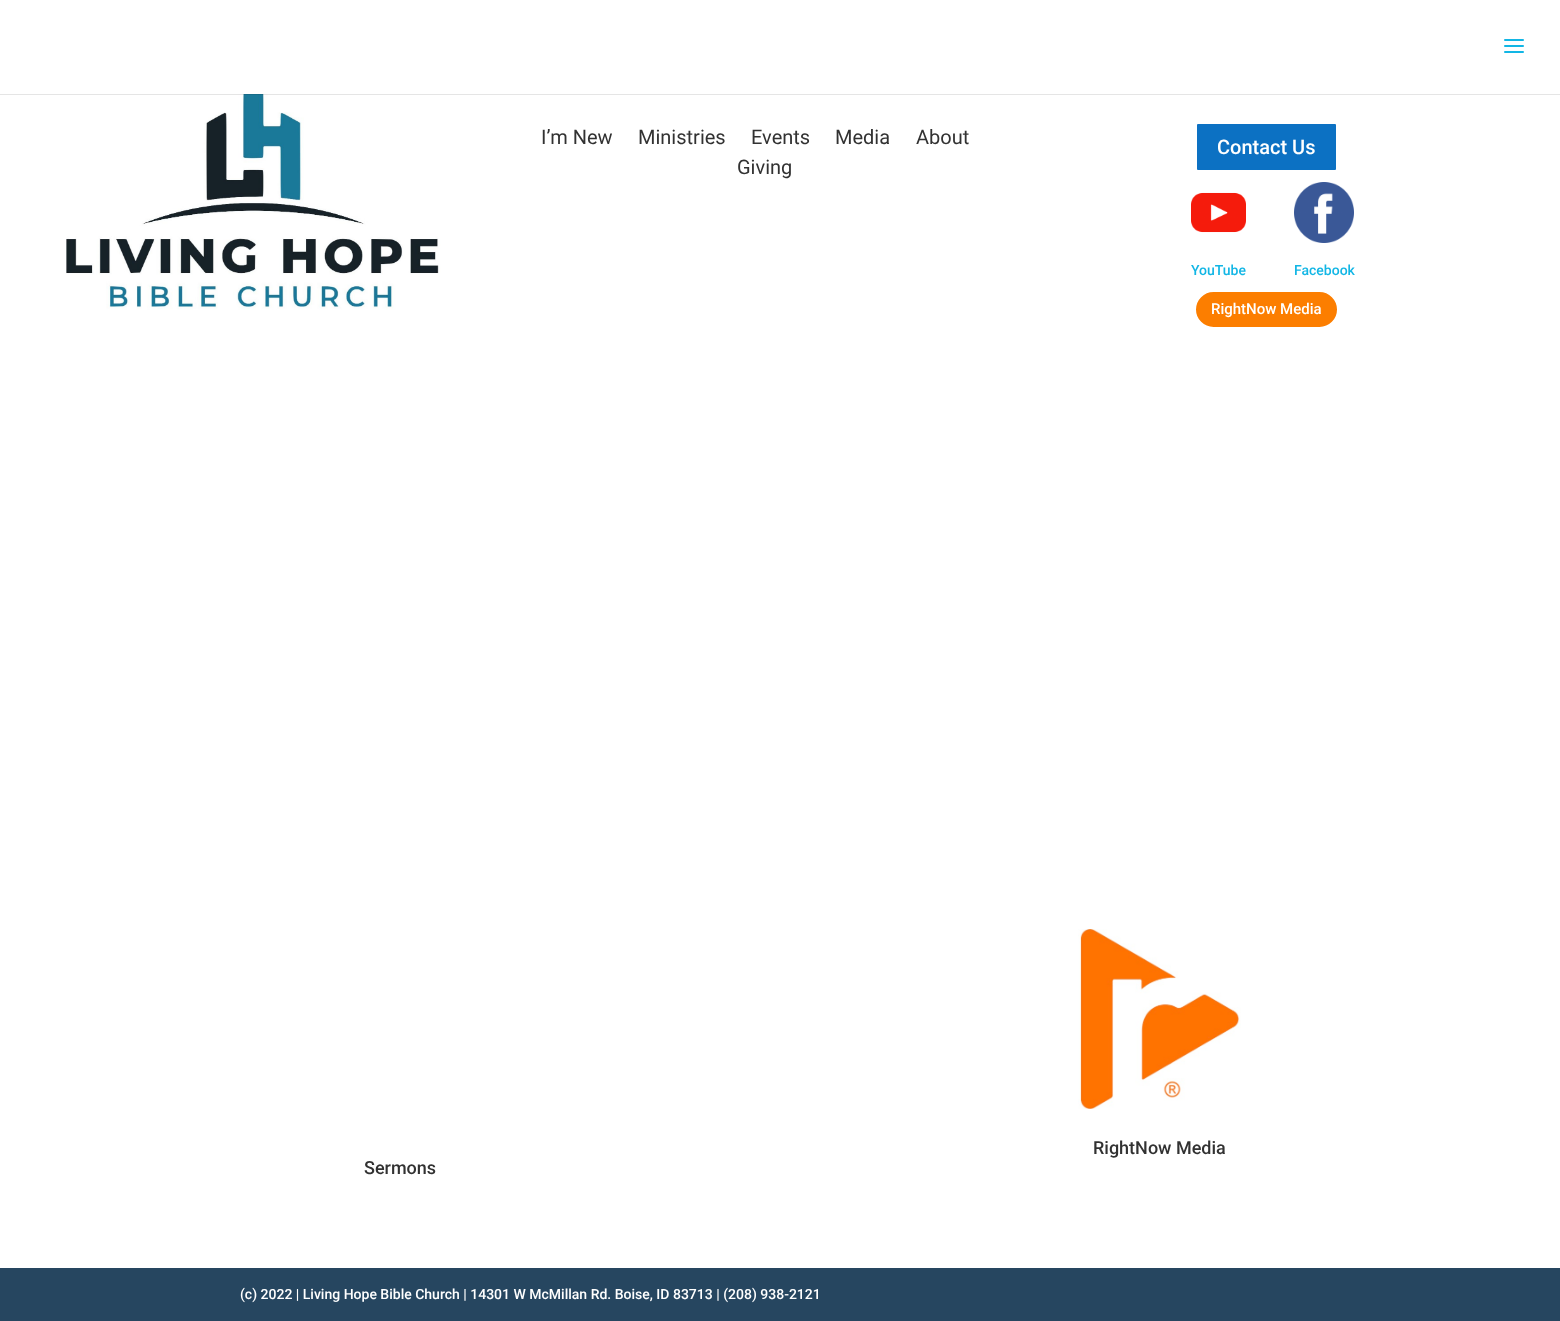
<?xml version="1.0" encoding="UTF-8"?>
<svg xmlns="http://www.w3.org/2000/svg" xmlns:xlink="http://www.w3.org/1999/xlink" width="1560" height="1321">
  <rect width="100%" height="100%" fill="#264660" />
  <rect width="1560" height="1268" fill="#ffffff" />
  <image x="51" y="94" width="405" height="216" xlink:href="image2.png" />
  <rect y="94" width="1560" height="1" fill="#000000" fill-opacity="0.1" />
  <image x="1504" y="39" width="20" height="14" xlink:href="image1.png" />
  <rect x="1196" y="123" width="141" height="48" rx="2" fill="#0c71c3" stroke="#ffffff" stroke-width="2" />
  <image x="1191" y="192" width="55" height="41" xlink:href="image3.png" />
  <image x="1294" y="182" width="60" height="61" xlink:href="image4.png" />
  <rect x="1195" y="291" width="143" height="37" rx="18.5" fill="#fc7e00" stroke="#ffffff" stroke-width="2" />
  <image x="1078" y="929" width="163" height="180" xlink:href="image5.png" />
  <text x="541" y="144" style="font-family: Roboto; font-size: 20px; fill: #323232">I’m New</text>
  <text x="638" y="144" style="font-family: Roboto; font-size: 20px; fill: #323232">Ministries</text>
  <text x="751" y="144" style="font-family: Roboto; font-size: 20px; fill: #323232">Events</text>
  <text x="835" y="144" style="font-family: Roboto; font-size: 20px; fill: #323232">Media</text>
  <text x="916" y="144" style="font-family: Roboto; font-size: 20px; fill: #323232">About</text>
  <text x="737" y="174" style="font-family: Roboto; font-size: 20px; fill: #323232">Giving</text>
  <text x="1217" y="154" style="font-family: Roboto; font-size: 20px; font-weight: 500; fill: #ffffff">Contact Us</text>
  <text x="1191" y="275" style="font-family: Roboto; font-size: 14px; font-weight: 500; fill: #12b6e5">YouTube</text>
  <text x="1294" y="275" style="font-family: Roboto; font-size: 14px; font-weight: 500; fill: #12b6e5">Facebook</text>
  <text x="1211" y="314" style="font-family: Roboto; font-size: 15px; font-weight: 500; fill: #ffffff">RightNow Media</text>
  <text x="1093" y="1154" style="font-family: Roboto; font-size: 18px; font-weight: 500; fill: #323232">RightNow Media</text>
  <text x="364" y="1174" style="font-family: Roboto; font-size: 18px; font-weight: 500; fill: #323232">Sermons</text>
  <text x="240" y="1299" style="font-family: Roboto; font-size: 14px; font-weight: 500; fill: #ffffff">(c) 2022 | Living Hope Bible Church | 14301 W McMillan Rd. Boise, ID 83713 | (208) 938-2121</text>
</svg>
